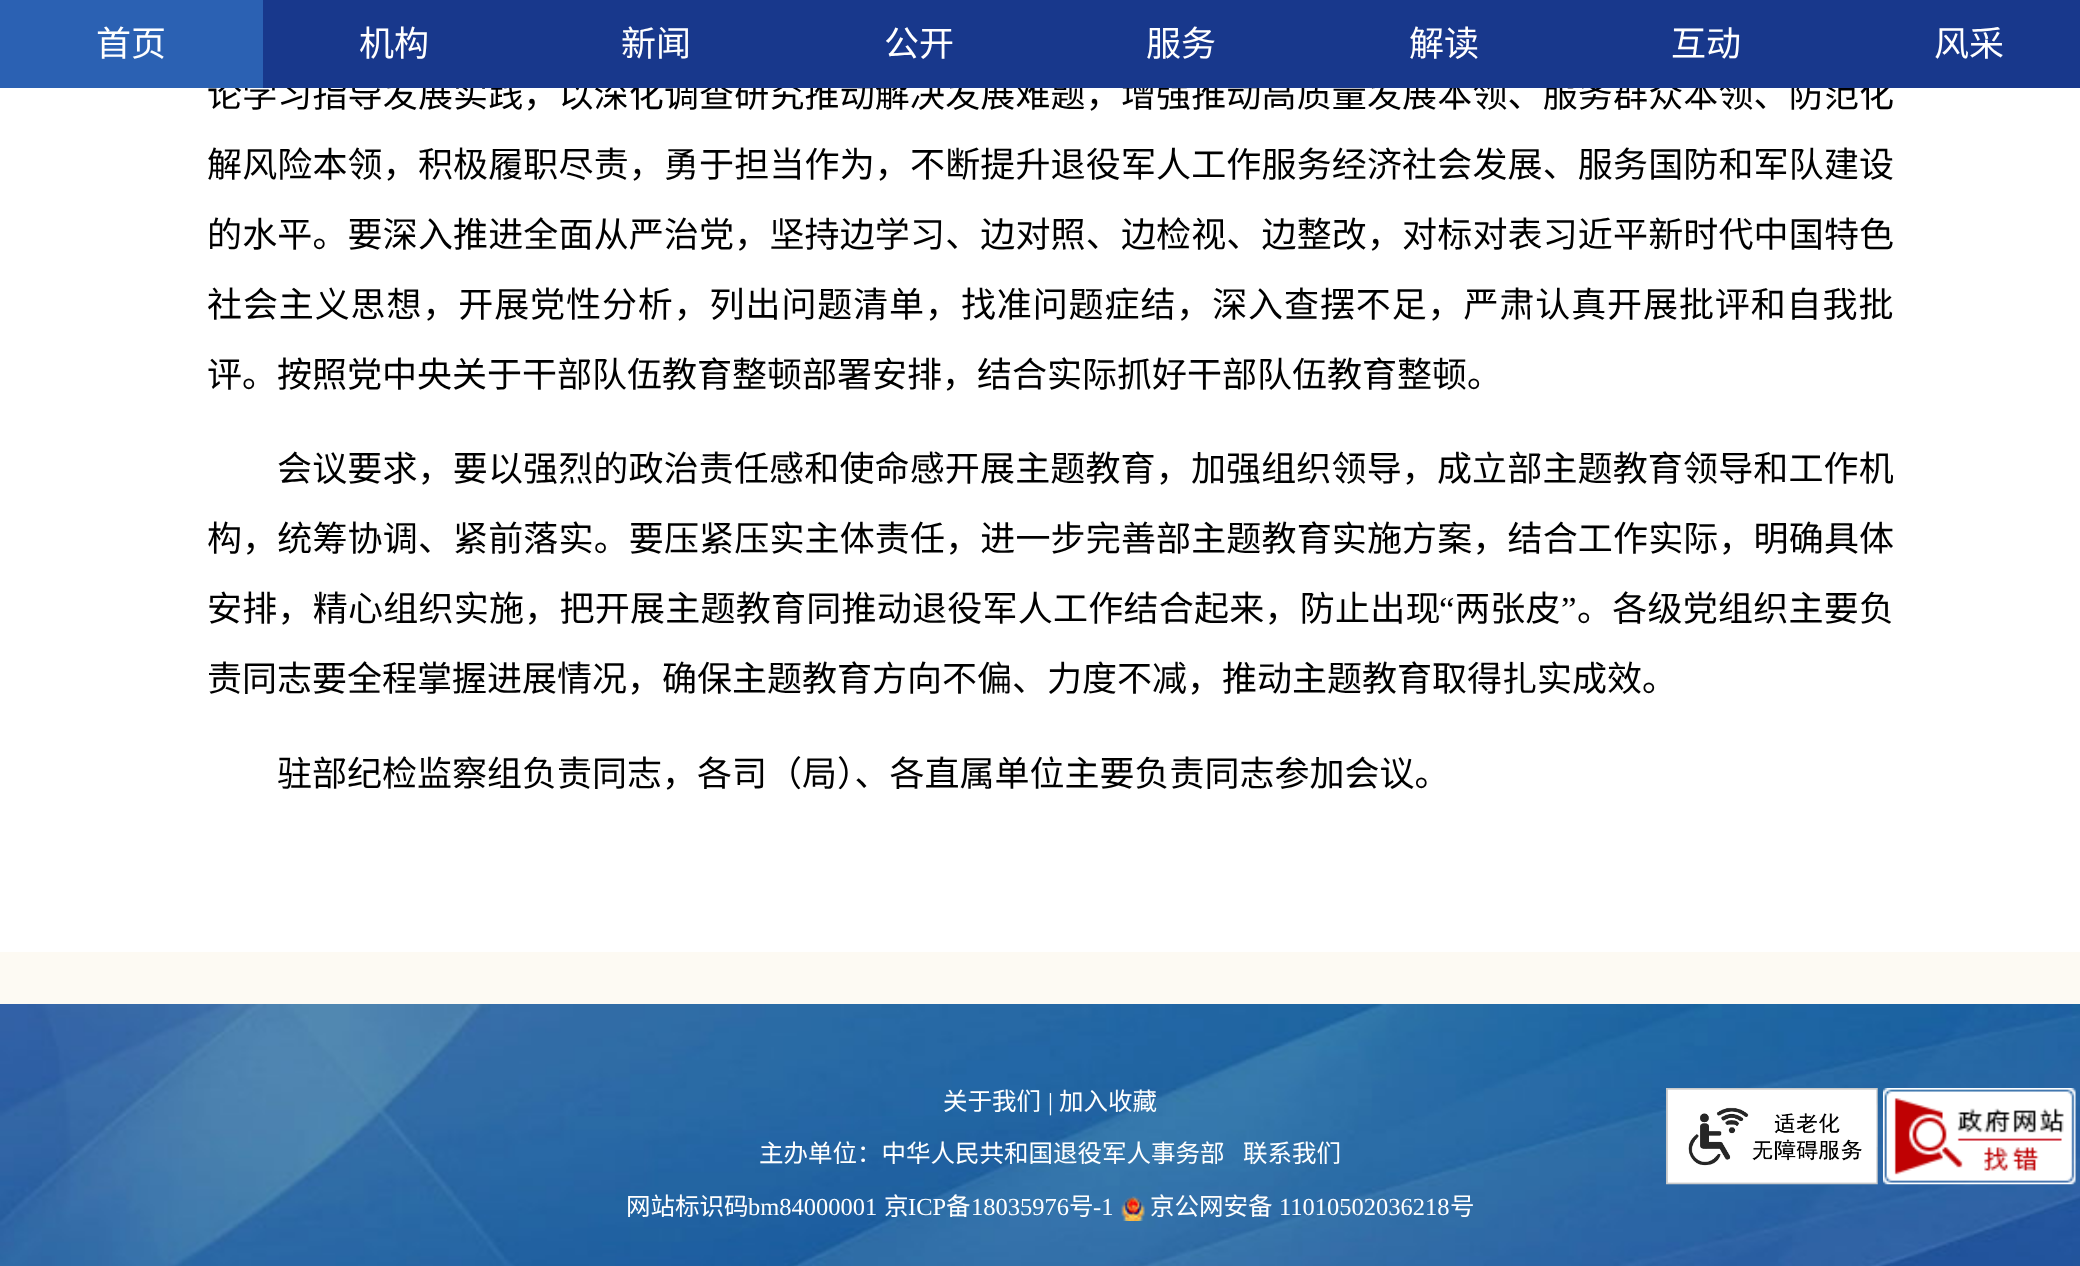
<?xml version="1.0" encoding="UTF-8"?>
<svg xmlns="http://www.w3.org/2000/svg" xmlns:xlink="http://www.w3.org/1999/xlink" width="2080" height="1266">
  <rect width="100%" height="100%" fill="#fdfaf3" />
  <rect y="88" width="2080" height="864" fill="#ffffff" />
  <image x="0" y="1004" width="2080" height="262" xlink:href="image1.png" />
  <image x="1666" y="1088" width="212" height="97" xlink:href="image2.png" />
  <image x="1883" y="1088" width="193" height="97" xlink:href="image3.png" />
  <image x="1121" y="1196" width="24" height="25" xlink:href="image4.png" />
  <text x="207" y="107" style="font-family: Noto Sans CJK SC; font-size: 35px; letter-spacing: 0.15px; fill: #000000">论学习指导发展实践，以深化调查研究推动解决发展难题，增强推动高质量发展本领、服务群众本领、防范化</text>
  <rect x="263" width="1817" height="88" fill="#18388c" />
  <text x="1934" y="56" style="font-family: Noto Sans CJK SC; font-size: 35px; fill: #ffffff">风采</text>
  <text x="1671" y="56" style="font-family: Noto Sans CJK SC; font-size: 35px; fill: #ffffff">互动</text>
  <text x="1409" y="56" style="font-family: Noto Sans CJK SC; font-size: 35px; fill: #ffffff">解读</text>
  <text x="1146" y="56" style="font-family: Noto Sans CJK SC; font-size: 35px; fill: #ffffff">服务</text>
  <text x="884" y="56" style="font-family: Noto Sans CJK SC; font-size: 35px; fill: #ffffff">公开</text>
  <text x="621" y="56" style="font-family: Noto Sans CJK SC; font-size: 35px; fill: #ffffff">新闻</text>
  <text x="359" y="56" style="font-family: Noto Sans CJK SC; font-size: 35px; fill: #ffffff">机构</text>
  <rect width="263" height="88" fill="#2b61b3" />
  <text x="96" y="56" style="font-family: Noto Sans CJK SC; font-size: 35px; fill: #ffffff">首页</text>
  <text x="207" y="177" style="font-family: Noto Sans CJK SC; font-size: 35px; letter-spacing: 0.15px; fill: #000000">解风险本领，积极履职尽责，勇于担当作为，不断提升退役军人工作服务经济社会发展、服务国防和军队建设</text>
  <text x="207" y="247" style="font-family: Noto Sans CJK SC; font-size: 35px; letter-spacing: 0.15px; fill: #000000">的水平。要深入推进全面从严治党，坚持边学习、边对照、边检视、边整改，对标对表习近平新时代中国特色</text>
  <text x="207" y="317" style="font-family: Noto Sans CJK SC; font-size: 35px; letter-spacing: 0.9px; fill: #000000">社会主义思想，开展党性分析，列出问题清单，找准问题症结，深入查摆不足，严肃认真开展批评和自我批</text>
  <text x="207" y="387" style="font-family: Noto Sans CJK SC; font-size: 35px; fill: #000000">评。按照党中央关于干部队伍教育整顿部署安排，结合实际抓好干部队伍教育整顿。</text>
  <text x="277" y="481" style="font-family: Noto Sans CJK SC; font-size: 35px; letter-spacing: 0.15px; fill: #000000">会议要求，要以强烈的政治责任感和使命感开展主题教育，加强组织领导，成立部主题教育领导和工作机</text>
  <text x="207" y="551" style="font-family: Noto Sans CJK SC; font-size: 35px; letter-spacing: 0.15px; fill: #000000">构，统筹协调、紧前落实。要压紧压实主体责任，进一步完善部主题教育实施方案，结合工作实际，明确具体</text>
  <text x="207" y="621" style="font-family: Noto Sans CJK SC; font-size: 35px; letter-spacing: 0.25px; fill: #000000">安排，精心组织实施，把开展主题教育同推动退役军人工作结合起来，防止出现</text>
  <text x="1439" y="621" style="font-family: Liberation Serif; font-size: 35px; letter-spacing: 0.25px; fill: #000000">“</text>
  <text x="1455" y="621" style="font-family: Noto Sans CJK SC; font-size: 35px; letter-spacing: 0.25px; fill: #000000">两张皮</text>
  <text x="1561" y="621" style="font-family: Liberation Serif; font-size: 35px; letter-spacing: 0.25px; fill: #000000">”</text>
  <text x="1577" y="621" style="font-family: Noto Sans CJK SC; font-size: 35px; letter-spacing: 0.25px; fill: #000000">。各级党组织主要负</text>
  <text x="207" y="691" style="font-family: Noto Sans CJK SC; font-size: 35px; fill: #000000">责同志要全程掌握进展情况，确保主题教育方向不偏、力度不减，推动主题教育取得扎实成效。</text>
  <text x="277" y="786" style="font-family: Noto Sans CJK SC; font-size: 35px; fill: #000000">驻部纪检监察组负责同志，各司（局）、各直属单位主要负责同志参加会议。</text>
  <text x="943" y="1110" style="font-family: Noto Sans CJK SC; font-size: 24.5px; fill: #ffffff">关于我们</text>
  <text x="1048" y="1110" style="font-family: Liberation Serif; font-size: 24.5px; fill: #ffffff">|</text>
  <text x="1059" y="1110" style="font-family: Noto Sans CJK SC; font-size: 24.5px; fill: #ffffff">加入收藏</text>
  <text x="759" y="1162" style="font-family: Noto Sans CJK SC; font-size: 24.5px; fill: #ffffff">主办单位：中华人民共和国退役军人事务部</text>
  <text x="1243" y="1162" style="font-family: Noto Sans CJK SC; font-size: 24.5px; fill: #ffffff">联系我们</text>
  <text x="626" y="1215" style="font-family: Noto Sans CJK SC; font-size: 24.5px; fill: #ffffff">网站标识码</text>
  <text x="748" y="1215" style="font-family: Liberation Serif; font-size: 24.5px; fill: #ffffff">bm84000001</text>
  <text x="884" y="1215" style="font-family: Noto Sans CJK SC; font-size: 24.5px; fill: #ffffff">京</text>
  <text x="908" y="1215" style="font-family: Liberation Serif; font-size: 24.5px; fill: #ffffff">ICP</text>
  <text x="946" y="1215" style="font-family: Noto Sans CJK SC; font-size: 24.5px; fill: #ffffff">备</text>
  <text x="971" y="1215" style="font-family: Liberation Serif; font-size: 24.5px; fill: #ffffff">18035976</text>
  <text x="1069" y="1215" style="font-family: Noto Sans CJK SC; font-size: 24.5px; fill: #ffffff">号</text>
  <text x="1093" y="1215" style="font-family: Liberation Serif; font-size: 24.5px; fill: #ffffff">-1</text>
  <text x="1150" y="1215" style="font-family: Noto Sans CJK SC; font-size: 24.5px; fill: #ffffff">京公网安备</text>
  <text x="1279" y="1215" style="font-family: Liberation Serif; font-size: 24.5px; fill: #ffffff">11010502036218</text>
  <text x="1450" y="1215" style="font-family: Noto Sans CJK SC; font-size: 24.5px; fill: #ffffff">号</text>
</svg>
